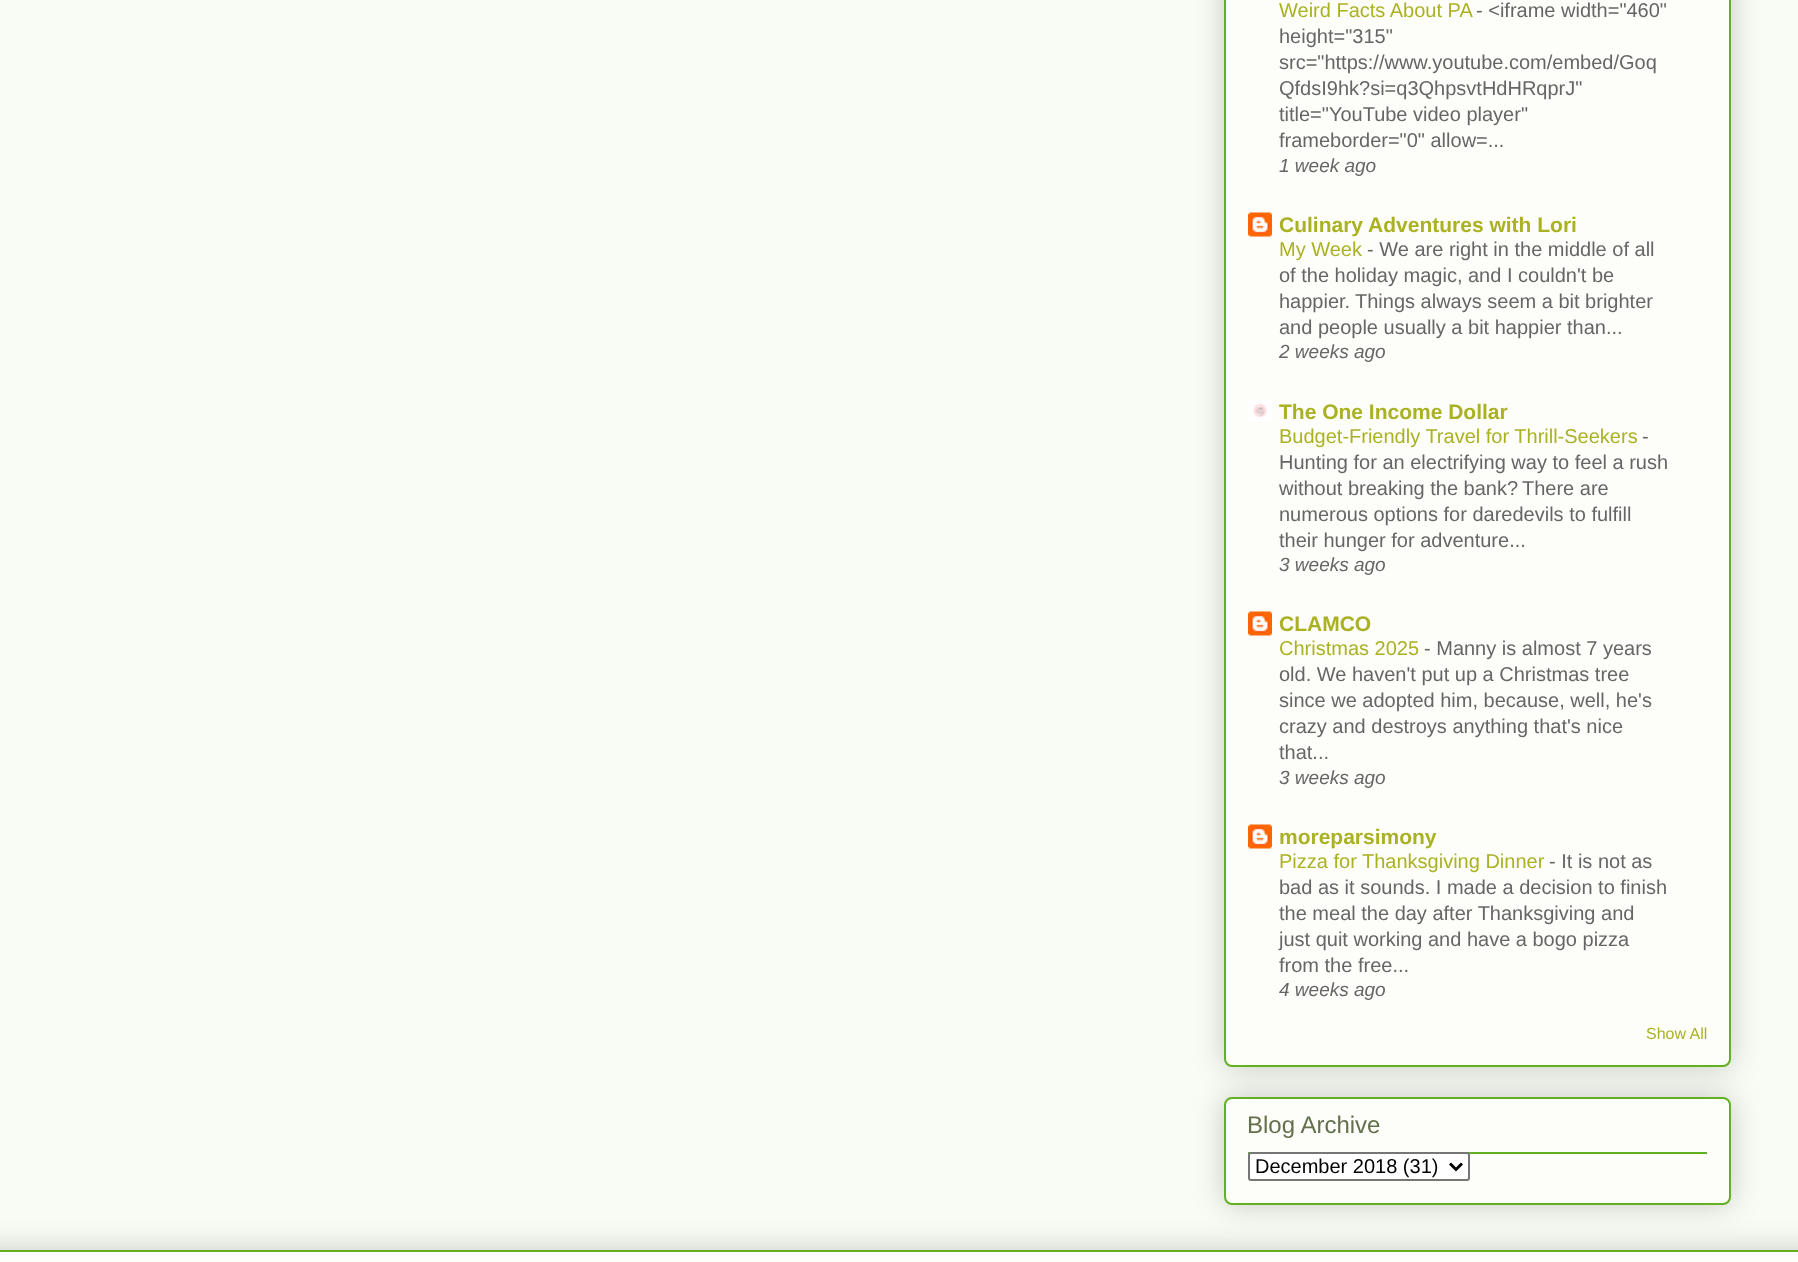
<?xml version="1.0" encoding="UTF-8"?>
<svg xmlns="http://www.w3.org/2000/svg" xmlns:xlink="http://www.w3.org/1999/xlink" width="1798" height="1262">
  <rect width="100%" height="100%" fill="#f9fcf5" />
  <rect x="1224" y="-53" width="507" height="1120" rx="8" fill="#000000" fill-opacity="0.2" filter="blur(15px)" />
  <rect x="1225" y="-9" width="505" height="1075" rx="7" fill="#fdfefa" stroke="#63b122" stroke-width="2" />
  <image x="1248" y="212" width="24" height="25" xlink:href="image1.png" />
  <image x="1248" y="399" width="24" height="23" xlink:href="image2.png" />
  <image x="1248" y="611" width="24" height="25" xlink:href="image1.png" />
  <image x="1248" y="824" width="24" height="25" xlink:href="image1.png" />
  <rect x="1224" y="1097" width="507" height="108" rx="8" fill="#000000" fill-opacity="0.2" filter="blur(15px)" />
  <rect x="1225" y="1098" width="505" height="106" rx="7" fill="#fdfefa" stroke="#63b122" stroke-width="2" />
  <rect x="1248" y="1152" width="459" height="2" fill="#63b122" />
  <rect x="1249" y="1153" width="220" height="27" rx="2" fill="#ffffff" stroke="#767676" stroke-width="2" />
  <path d="M 1450 1163.5 l 6 6 l 6 -6" fill="none" stroke="#000000" stroke-width="3" />
  <rect x="-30" y="1250" width="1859" height="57" fill="#000000" fill-opacity="0.2" filter="blur(15px)" />
  <rect y="1252" width="1798" height="10" fill="#fdfefa" />
  <rect y="1250" width="1798" height="2" fill="#63b122" />
  <text x="1279" y="17" style="font-family: Liberation Sans; font-size: 20px; fill: #aab123">Weird Facts About PA</text>
  <text x="1476" y="17" style="font-family: Liberation Sans; font-size: 20px; fill: #666666">- &lt;iframe width="460"</text>
  <text x="1279" y="43" style="font-family: Liberation Sans; font-size: 20px; fill: #666666">height="315"</text>
  <text x="1279" y="69" style="font-family: Liberation Sans; font-size: 20px; fill: #666666">src="https://www.youtube.com/embed/Goq</text>
  <text x="1279" y="95" style="font-family: Liberation Sans; font-size: 20px; fill: #666666">QfdsI9hk?si=q3QhpsvtHdHRqprJ"</text>
  <text x="1279" y="121" style="font-family: Liberation Sans; font-size: 20px; fill: #666666">title="YouTube video player"</text>
  <text x="1279" y="147" style="font-family: Liberation Sans; font-size: 20px; fill: #666666">frameborder="0" allow=...</text>
  <text x="1279" y="172" style="font-family: Liberation Sans; font-size: 19px; font-style: italic; fill: #666666">1 week ago</text>
  <text x="1279" y="232" style="font-family: Liberation Sans; font-size: 21px; font-weight: bold; fill: #aab123">Culinary Adventures with Lori</text>
  <text x="1279" y="256" style="font-family: Liberation Sans; font-size: 20px; fill: #aab123">My Week</text>
  <text x="1367" y="256" style="font-family: Liberation Sans; font-size: 20px; fill: #666666">- We are right in the middle of all</text>
  <text x="1279" y="282" style="font-family: Liberation Sans; font-size: 20px; fill: #666666">of the holiday magic, and I couldn't be</text>
  <text x="1279" y="308" style="font-family: Liberation Sans; font-size: 20px; fill: #666666">happier.</text>
  <text x="1355" y="308" style="font-family: Liberation Sans; font-size: 20px; fill: #666666">Things always seem a bit brighter</text>
  <text x="1279" y="334" style="font-family: Liberation Sans; font-size: 20px; fill: #666666">and people usually a bit happier than...</text>
  <text x="1279" y="358" style="font-family: Liberation Sans; font-size: 19px; font-style: italic; fill: #666666">2 weeks ago</text>
  <text x="1279" y="419" style="font-family: Liberation Sans; font-size: 21px; font-weight: bold; fill: #aab123">The One Income Dollar</text>
  <text x="1279" y="443" style="font-family: Liberation Sans; font-size: 20px; fill: #aab123">Budget-Friendly Travel for Thrill-Seekers</text>
  <text x="1642" y="443" style="font-family: Liberation Sans; font-size: 20px; fill: #666666">-</text>
  <text x="1279" y="469" style="font-family: Liberation Sans; font-size: 20px; fill: #666666">Hunting for an electrifying way to feel a rush</text>
  <text x="1279" y="495" style="font-family: Liberation Sans; font-size: 20px; fill: #666666">without breaking the bank?</text>
  <text x="1522" y="495" style="font-family: Liberation Sans; font-size: 20px; fill: #666666">There are</text>
  <text x="1279" y="521" style="font-family: Liberation Sans; font-size: 20px; fill: #666666">numerous options for daredevils to fulfill</text>
  <text x="1279" y="547" style="font-family: Liberation Sans; font-size: 20px; fill: #666666">their hunger for adventure...</text>
  <text x="1279" y="571" style="font-family: Liberation Sans; font-size: 19px; font-style: italic; fill: #666666">3 weeks ago</text>
  <text x="1279" y="631" style="font-family: Liberation Sans; font-size: 21px; font-weight: bold; fill: #aab123">CLAMCO</text>
  <text x="1279" y="655" style="font-family: Liberation Sans; font-size: 20px; fill: #aab123">Christmas 2025</text>
  <text x="1424" y="655" style="font-family: Liberation Sans; font-size: 20px; fill: #666666">- Manny is almost 7 years</text>
  <text x="1279" y="681" style="font-family: Liberation Sans; font-size: 20px; fill: #666666">old. We haven't put up a Christmas tree</text>
  <text x="1279" y="707" style="font-family: Liberation Sans; font-size: 20px; fill: #666666">since we adopted him, because, well, he's</text>
  <text x="1279" y="733" style="font-family: Liberation Sans; font-size: 20px; fill: #666666">crazy and destroys anything that's nice</text>
  <text x="1279" y="759" style="font-family: Liberation Sans; font-size: 20px; fill: #666666">that...</text>
  <text x="1279" y="784" style="font-family: Liberation Sans; font-size: 19px; font-style: italic; fill: #666666">3 weeks ago</text>
  <text x="1279" y="844" style="font-family: Liberation Sans; font-size: 21px; font-weight: bold; fill: #aab123">moreparsimony</text>
  <text x="1279" y="868" style="font-family: Liberation Sans; font-size: 20px; fill: #aab123">Pizza for Thanksgiving Dinner</text>
  <text x="1549" y="868" style="font-family: Liberation Sans; font-size: 20px; fill: #666666">- It is not as</text>
  <text x="1279" y="894" style="font-family: Liberation Sans; font-size: 20px; fill: #666666">bad as it sounds. I made a decision to finish</text>
  <text x="1279" y="920" style="font-family: Liberation Sans; font-size: 20px; fill: #666666">the meal the day after Thanksgiving and</text>
  <text x="1279" y="946" style="font-family: Liberation Sans; font-size: 20px; fill: #666666">just quit working and have a bogo pizza</text>
  <text x="1279" y="972" style="font-family: Liberation Sans; font-size: 20px; fill: #666666">from the free...</text>
  <text x="1279" y="996" style="font-family: Liberation Sans; font-size: 19px; font-style: italic; fill: #666666">4 weeks ago</text>
  <text x="1646" y="1039" style="font-family: Liberation Sans; font-size: 16px; fill: #aab123">Show All</text>
  <text x="1247" y="1133" style="font-family: Liberation Sans; font-size: 24px; fill: #63704b">Blog Archive</text>
  <text x="1255" y="1173" style="font-family: Liberation Sans; font-size: 20px; fill: #000000">December 2018 (31)</text>
</svg>
